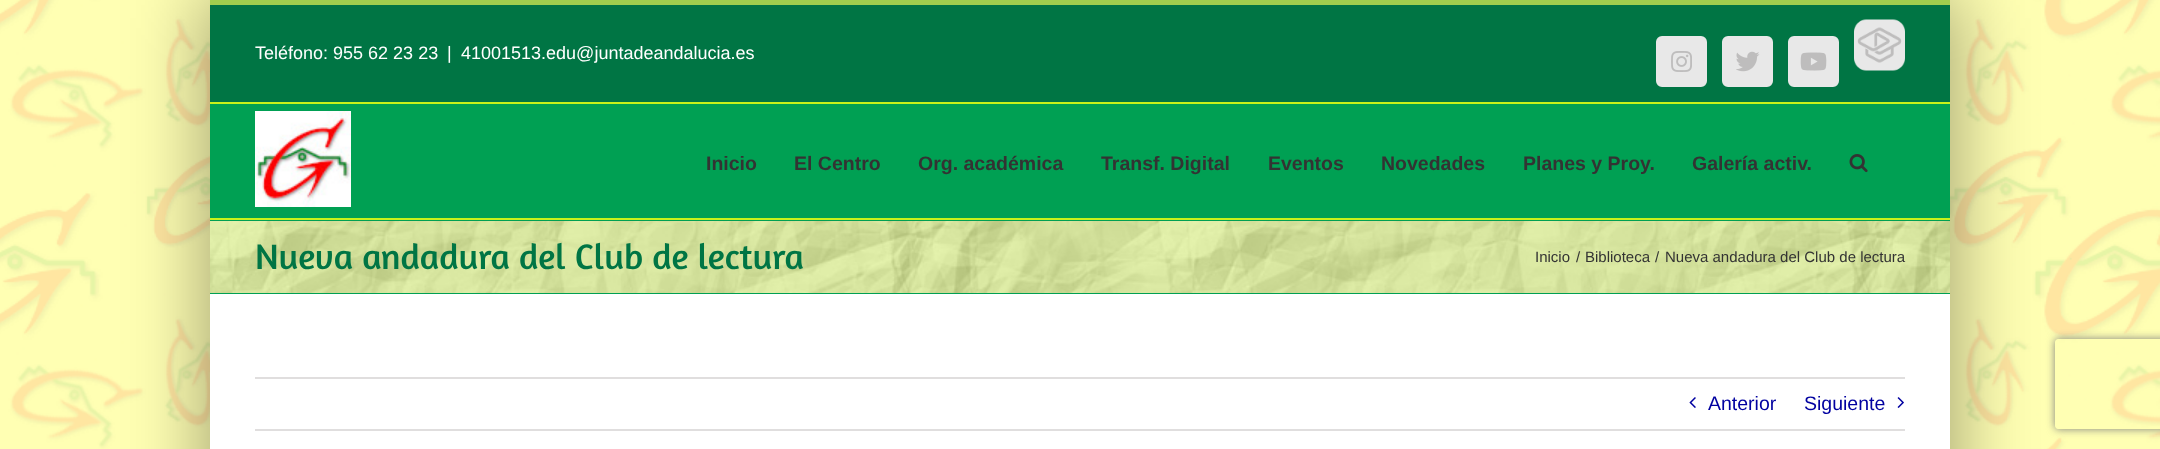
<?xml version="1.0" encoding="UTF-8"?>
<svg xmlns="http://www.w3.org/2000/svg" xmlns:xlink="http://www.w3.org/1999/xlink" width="2160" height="449">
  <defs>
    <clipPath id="clip1"><path d="M 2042 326 h 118 v 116 h -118 z m 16 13 h 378 c 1.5 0 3 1.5 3 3 v 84 c 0 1.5 -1.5 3 -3 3 h -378 c -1.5 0 -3 -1.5 -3 -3 v -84 c 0 -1.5 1.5 -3 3 -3 z" clip-rule="evenodd" /></clipPath>
  </defs>
  <rect width="100%" height="100%" fill="#ffffff" />
  <image x="0" y="0" width="2160" height="449" xlink:href="image1.png" />
  <rect x="203" y="-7" width="1755" height="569" fill="#000000" fill-opacity="0.35" filter="blur(37.5px)" />
  <rect x="210" y="5" width="1740" height="97" fill="#007544" />
  <rect x="210" width="1740" height="5" fill="#a0ce4e" />
  <rect x="210" y="102" width="1740" height="2" fill="#c7f21a" />
  <rect x="1657" y="37" width="49" height="49" rx="5" fill="#e8e8e8" stroke="#e8e8e8" stroke-width="2" />
  <image x="1671" y="51" width="21" height="21" xlink:href="image2.png" />
  <rect x="1723" y="37" width="49" height="49" rx="5" fill="#e8e8e8" stroke="#e8e8e8" stroke-width="2" />
  <image x="1736" y="51" width="24" height="21" xlink:href="image3.png" />
  <rect x="1789" y="37" width="49" height="49" rx="5" fill="#e8e8e8" stroke="#e8e8e8" stroke-width="2" />
  <image x="1800" y="52" width="27" height="19" xlink:href="image4.png" />
  <image x="1854" y="19" width="51" height="52" xlink:href="image5.png" />
  <rect x="210" y="104" width="1740" height="114" fill="#00a053" />
  <rect x="210" y="218" width="1740" height="2" fill="#c7f21a" />
  <image x="255" y="111" width="96" height="96" xlink:href="image6.png" />
  <image x="1849" y="154" width="19" height="19" xlink:href="image7.png" />
  <rect x="210" y="221" width="1740" height="72" fill="#c7f21a" />
  <image x="210" y="221" width="1740" height="72" xlink:href="image8.png" />
  <rect x="210" y="220" width="1740" height="1" fill="#00a053" />
  <rect x="210" y="293" width="1740" height="1" fill="#00a053" />
  <rect x="210" y="294" width="1740" height="155" fill="#ffffff" />
  <rect x="255" y="377" width="1650" height="2" fill="#e0dede" />
  <rect x="255" y="429" width="1650" height="2" fill="#e0dede" />
  <image x="1689" y="397" width="7" height="11" xlink:href="image9.png" />
  <image x="1897" y="397" width="7" height="11" xlink:href="image10.png" />
  <g clip-path="url(#clip1)">
    <rect x="2055" y="339" width="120" height="90" rx="3" fill="#808080" filter="blur(4px)" />
  </g>
  <text x="255" y="59" style="font-family: Liberation Sans; font-size: 18px; fill: #ffffff">Teléfono: 955 62 23 23</text>
  <text x="447" y="59" style="font-family: Liberation Sans; font-size: 18px; fill: #ffffff">|</text>
  <text x="461" y="59" style="font-family: Liberation Sans; font-size: 18px; fill: #ffffff">41001513.edu@juntadeandalucia.es</text>
  <text x="706" y="170" style="font-family: Liberation Sans; font-size: 19.5px; font-weight: bold; fill: #333333">Inicio</text>
  <text x="794" y="170" style="font-family: Liberation Sans; font-size: 19.5px; font-weight: bold; fill: #333333">El Centro</text>
  <text x="918" y="170" style="font-family: Liberation Sans; font-size: 19.5px; font-weight: bold; fill: #333333">Org. académica</text>
  <text x="1101" y="170" style="font-family: Liberation Sans; font-size: 19.5px; font-weight: bold; fill: #333333">Transf. Digital</text>
  <text x="1268" y="170" style="font-family: Liberation Sans; font-size: 19.5px; font-weight: bold; fill: #333333">Eventos</text>
  <text x="1381" y="170" style="font-family: Liberation Sans; font-size: 19.5px; font-weight: bold; fill: #333333">Novedades</text>
  <text x="1523" y="170" style="font-family: Liberation Sans; font-size: 19.5px; font-weight: bold; fill: #333333">Planes y Proy.</text>
  <text x="1692" y="170" style="font-family: Liberation Sans; font-size: 19.5px; font-weight: bold; fill: #333333">Galería activ.</text>
  <text x="255" y="269" style="font-family: Amaranth; font-size: 36px; fill: #007544">Nueva andadura del Club de lectura</text>
  <text x="1535" y="262" style="font-family: Liberation Sans; font-size: 15px; fill: #333333">Inicio</text>
  <text x="1576" y="262" style="font-family: Liberation Sans; font-size: 15px; fill: #333333">/</text>
  <text x="1585" y="262" style="font-family: Liberation Sans; font-size: 15px; fill: #333333">Biblioteca</text>
  <text x="1655" y="262" style="font-family: Liberation Sans; font-size: 15px; fill: #333333">/</text>
  <text x="1665" y="262" style="font-family: Liberation Sans; font-size: 15px; fill: #333333">Nueva andadura del Club de lectura</text>
  <text x="1708" y="410" style="font-family: Liberation Sans; font-size: 19.5px; fill: #0000a0">Anterior</text>
  <text x="1804" y="410" style="font-family: Liberation Sans; font-size: 19.5px; fill: #0000a0">Siguiente</text>
</svg>
